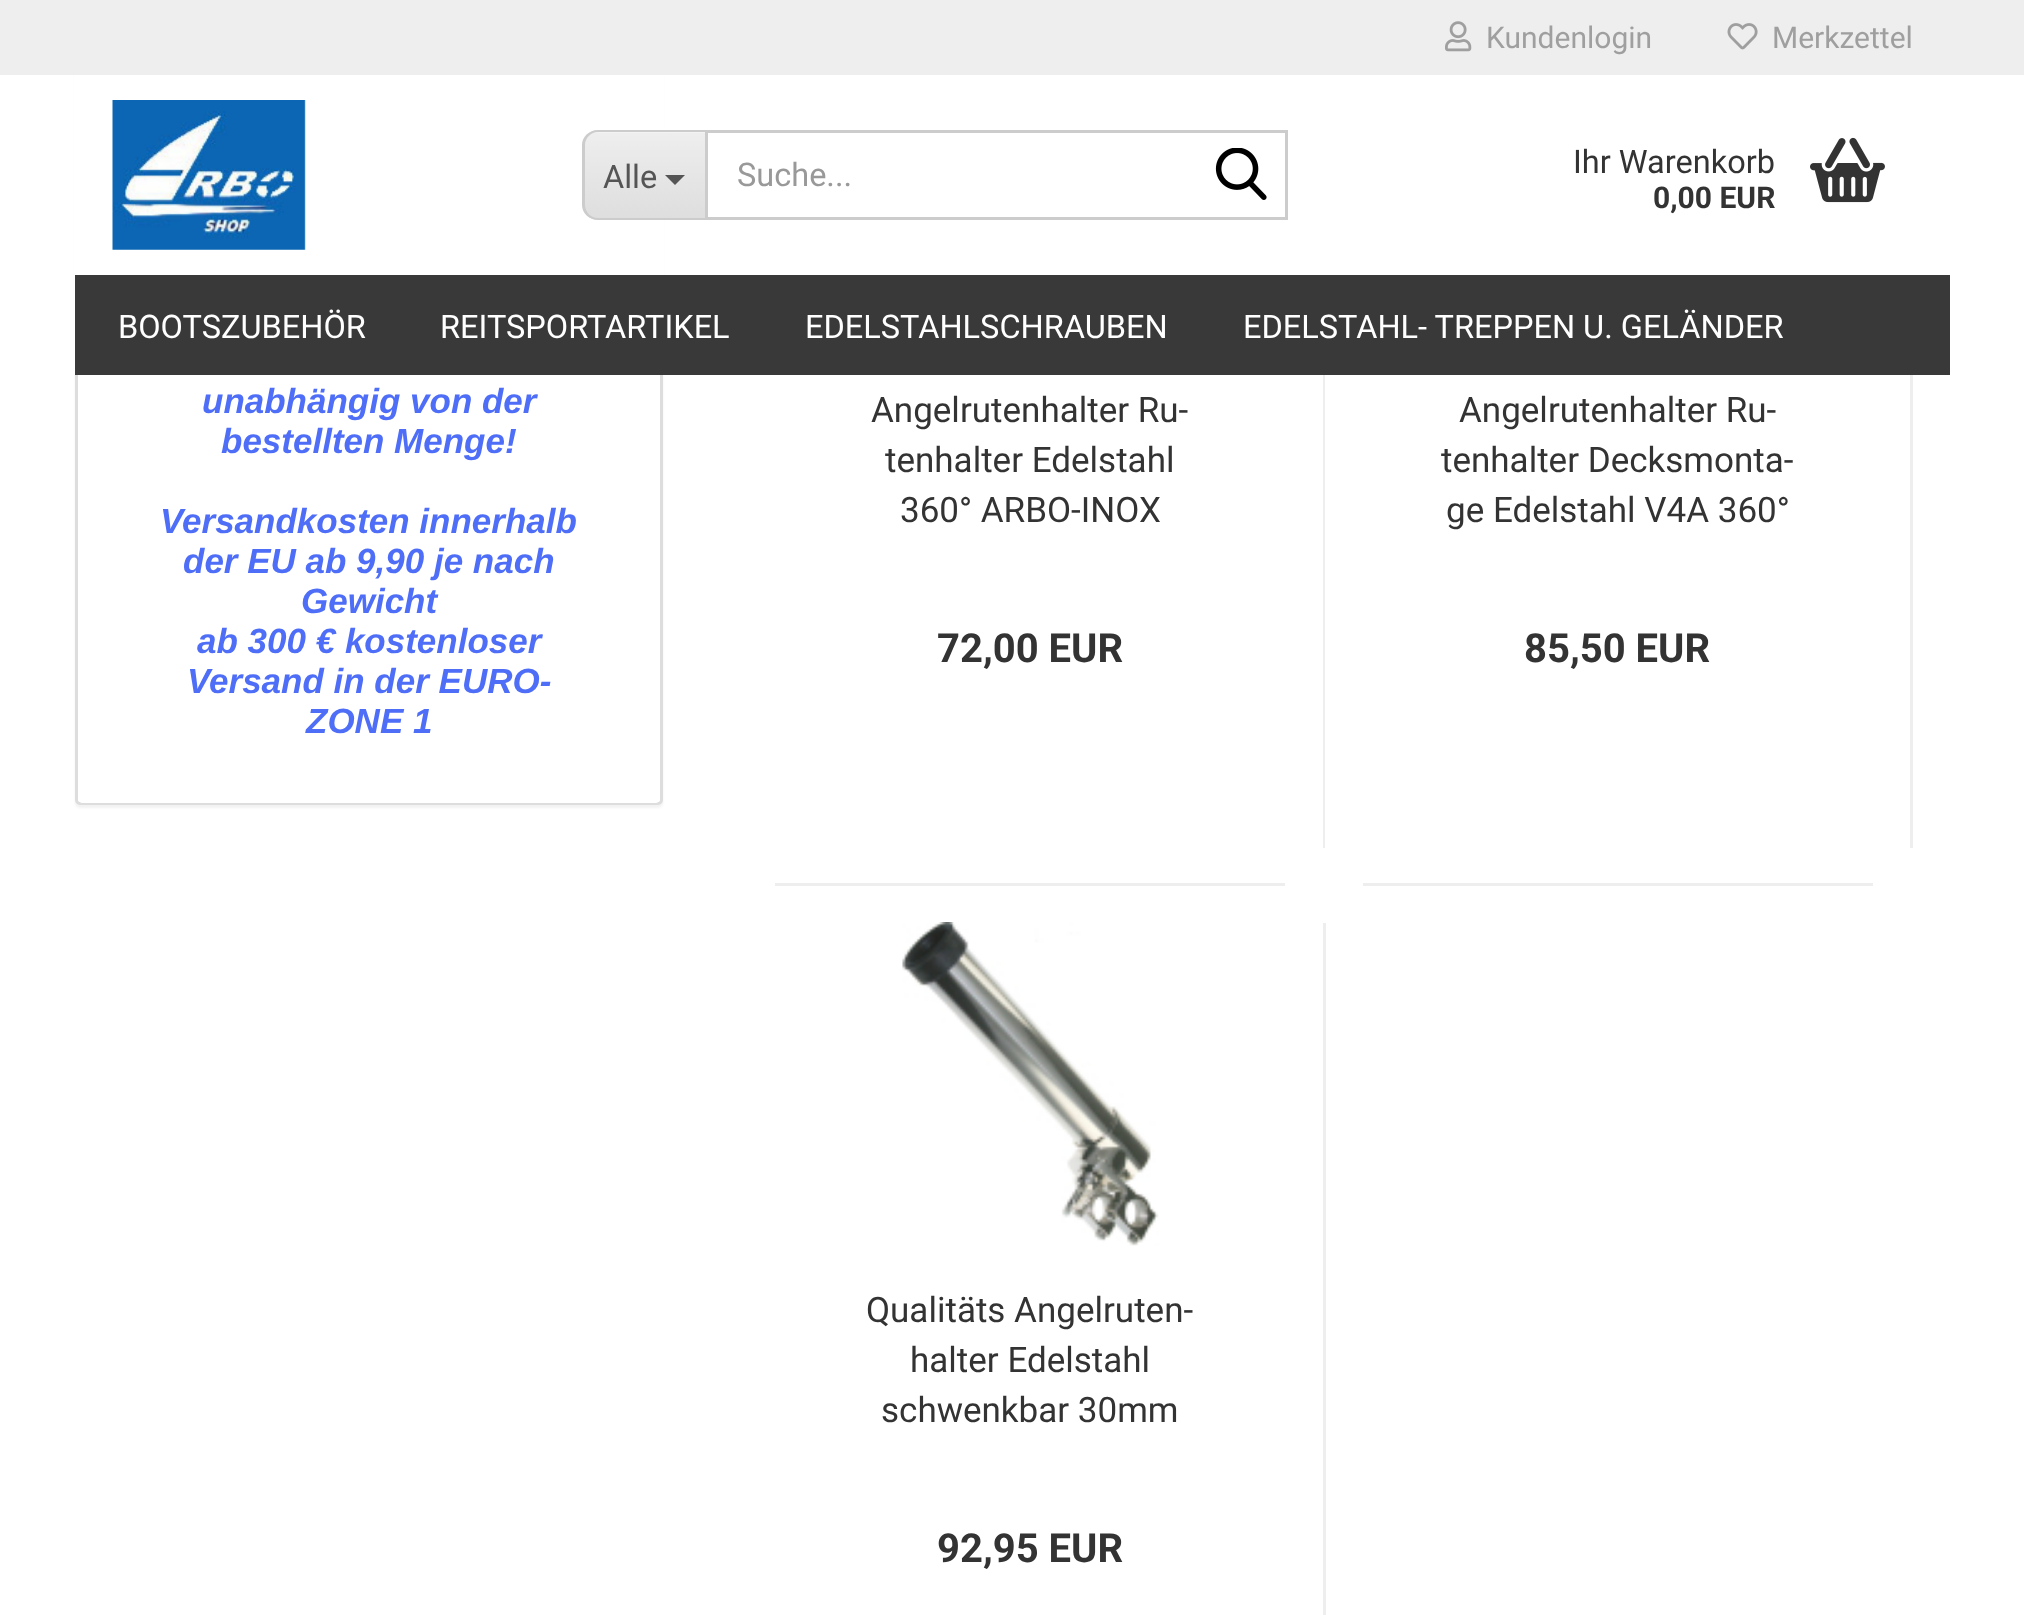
<?xml version="1.0" encoding="UTF-8"?>
<svg xmlns="http://www.w3.org/2000/svg" xmlns:xlink="http://www.w3.org/1999/xlink" width="2024" height="1615">
  <defs>
    <clipPath id="clip1"><path d="M 598 130 h 107 v 90 h -107 c -8.5 0 -15 -6.5 -15 -15 v -60 c 0 -8.5 6.5 -15 15 -15 z" /></clipPath>
    <linearGradient id="g1" gradientUnits="userSpaceOnUse" x1="645" y1="133" x2="645" y2="218"><stop offset="0" stop-color="#eeeeee" /><stop offset="1" stop-color="#dedede" /></linearGradient>
  </defs>
  <rect width="100%" height="100%" fill="#ffffff" />
  <rect x="75" y="-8" width="588" height="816" rx="5" fill="#000000" fill-opacity="0.05" filter="blur(1px)" />
  <rect x="76.5" y="-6.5" width="585" height="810" rx="3.5" fill="#ffffff" stroke="#dddddd" stroke-width="3" />
  <path d="M 78 20 h 582 v 778 c 0 3 -2 5 -5 5 h -572 c -3 0 -5 -2 -5 -5 z" fill="#ffffff" />
  <rect x="74" y="75" width="590" height="300" fill="#ffffff" />
  <rect width="2024" height="75" fill="#eeeeee" />
  <image x="1445" y="21" width="27" height="31" xlink:href="image1.png" />
  <image x="1727" y="23" width="31" height="27" xlink:href="image2.png" />
  <image x="112" y="100" width="194" height="150" xlink:href="image3.png" />
  <path d="M 598 130 h 107 v 90 h -107 c -8.5 0 -15 -6.5 -15 -15 v -60 c 0 -8.5 6.5 -15 15 -15 z" fill="#f3f3f3" />
  <g clip-path="url(#clip1)">
    <rect x="584" y="133" width="121" height="85" fill="url(#g1)" />
  </g>
  <path d="M 598 130 h 107 v 90 h -107 c -9 0 -16 -7 -16 -15 v -60 c 0 -8 7 -15 16 -15 z m 0 2 h 107 v 86 h -107 c -7 0 -13 -6 -13 -13 v -60 c 0 -7 6 -13 13 -13 z" fill="#cccccc" fill-rule="evenodd" />
  <path d="M 665 175 h 20 l -10 10 z" fill="#555555" />
  <rect x="706.5" y="131.5" width="580" height="87" fill="none" stroke="#cccccc" stroke-width="3" />
  <image x="1215" y="148" width="52" height="52" xlink:href="image4.png" />
  <image x="1810" y="137" width="75" height="66" xlink:href="image5.png" />
  <rect x="75" y="275" width="1875" height="100" fill="#393939" />
  <rect x="1323" y="375" width="2" height="473" fill="#eeeeee" />
  <rect x="775" y="883" width="510" height="3" fill="#eeeeee" />
  <rect x="1910" y="375" width="3" height="473" fill="#eeeeee" />
  <rect x="1363" y="883" width="510" height="3" fill="#eeeeee" />
  <rect x="1323" y="923" width="3" height="692" fill="#eeeeee" />
  <image x="902" y="922" width="257" height="324" xlink:href="image6.png" />
  <text x="1486" y="48" style="font-family: Roboto; font-size: 30px; fill: #9f9f9f">Kundenlogin</text>
  <text x="1772" y="48" style="font-family: Roboto; font-size: 30px; fill: #9f9f9f">Merkzettel</text>
  <text x="603" y="188" style="font-family: Roboto; font-size: 32.5px; fill: #555555">Alle</text>
  <text x="737" y="186" style="font-family: Roboto; font-size: 32.5px; fill: #999999">Suche...</text>
  <text x="1573" y="173" style="font-family: Roboto; font-size: 32.5px; fill: #333333">Ihr Warenkorb</text>
  <text x="1653" y="208" style="font-family: Roboto; font-size: 30px; font-weight: bold; fill: #333333">0,00 EUR</text>
  <text x="118" y="338" style="font-family: Roboto; font-size: 32.5px; fill: #ffffff">BOOTSZUBEHÖR</text>
  <text x="440" y="338" style="font-family: Roboto; font-size: 32.5px; fill: #ffffff">REITSPORTARTIKEL</text>
  <text x="805" y="338" style="font-family: Roboto; font-size: 32.5px; fill: #ffffff">EDELSTAHLSCHRAUBEN</text>
  <text x="1243" y="338" style="font-family: Roboto; font-size: 32.5px; fill: #ffffff">EDELSTAHL- TREPPEN U. GELÄNDER</text>
  <text x="202" y="413" style="font-family: Liberation Sans; font-size: 35px; font-weight: bold; font-style: italic; fill: #4e6ef7">unabhängig von der</text>
  <text x="221" y="453" style="font-family: Liberation Sans; font-size: 35px; font-weight: bold; font-style: italic; fill: #4e6ef7">bestellten Menge!</text>
  <text x="160" y="533" style="font-family: Liberation Sans; font-size: 35px; font-weight: bold; font-style: italic; fill: #4e6ef7">Versandkosten innerhalb</text>
  <text x="183" y="573" style="font-family: Liberation Sans; font-size: 35px; font-weight: bold; font-style: italic; fill: #4e6ef7">der EU ab 9,90 je nach</text>
  <text x="301" y="613" style="font-family: Liberation Sans; font-size: 35px; font-weight: bold; font-style: italic; fill: #4e6ef7">Gewicht</text>
  <text x="197" y="653" style="font-family: Liberation Sans; font-size: 35px; font-weight: bold; font-style: italic; fill: #4e6ef7">ab 300 € kostenloser</text>
  <text x="187" y="693" style="font-family: Liberation Sans; font-size: 35px; font-weight: bold; font-style: italic; fill: #4e6ef7">Versand in der EURO-</text>
  <text x="306" y="733" style="font-family: Liberation Sans; font-size: 35px; font-weight: bold; font-style: italic; fill: #4e6ef7">ZONE 1</text>
  <text x="871" y="422" style="font-family: Roboto; font-size: 35px; fill: #333333">Angelrutenhalter Ru-</text>
  <text x="885" y="472" style="font-family: Roboto; font-size: 35px; fill: #333333">tenhalter Edelstahl</text>
  <text x="900" y="522" style="font-family: Roboto; font-size: 35px; fill: #333333">360° ARBO-INOX</text>
  <text x="937" y="662" style="font-family: Roboto; font-size: 40px; font-weight: bold; fill: #333333">72,00 EUR</text>
  <text x="1459" y="422" style="font-family: Roboto; font-size: 35px; fill: #333333">Angelrutenhalter Ru-</text>
  <text x="1441" y="472" style="font-family: Roboto; font-size: 35px; fill: #333333">tenhalter Decksmonta-</text>
  <text x="1446" y="522" style="font-family: Roboto; font-size: 35px; fill: #333333">ge Edelstahl V4A 360°</text>
  <text x="1524" y="662" style="font-family: Roboto; font-size: 40px; font-weight: bold; fill: #333333">85,50 EUR</text>
  <text x="866" y="1322" style="font-family: Roboto; font-size: 35px; fill: #333333">Qualitäts Angelruten-</text>
  <text x="910" y="1372" style="font-family: Roboto; font-size: 35px; fill: #333333">halter Edelstahl</text>
  <text x="881" y="1422" style="font-family: Roboto; font-size: 35px; fill: #333333">schwenkbar 30mm</text>
  <text x="937" y="1562" style="font-family: Roboto; font-size: 40px; font-weight: bold; fill: #333333">92,95 EUR</text>
</svg>
